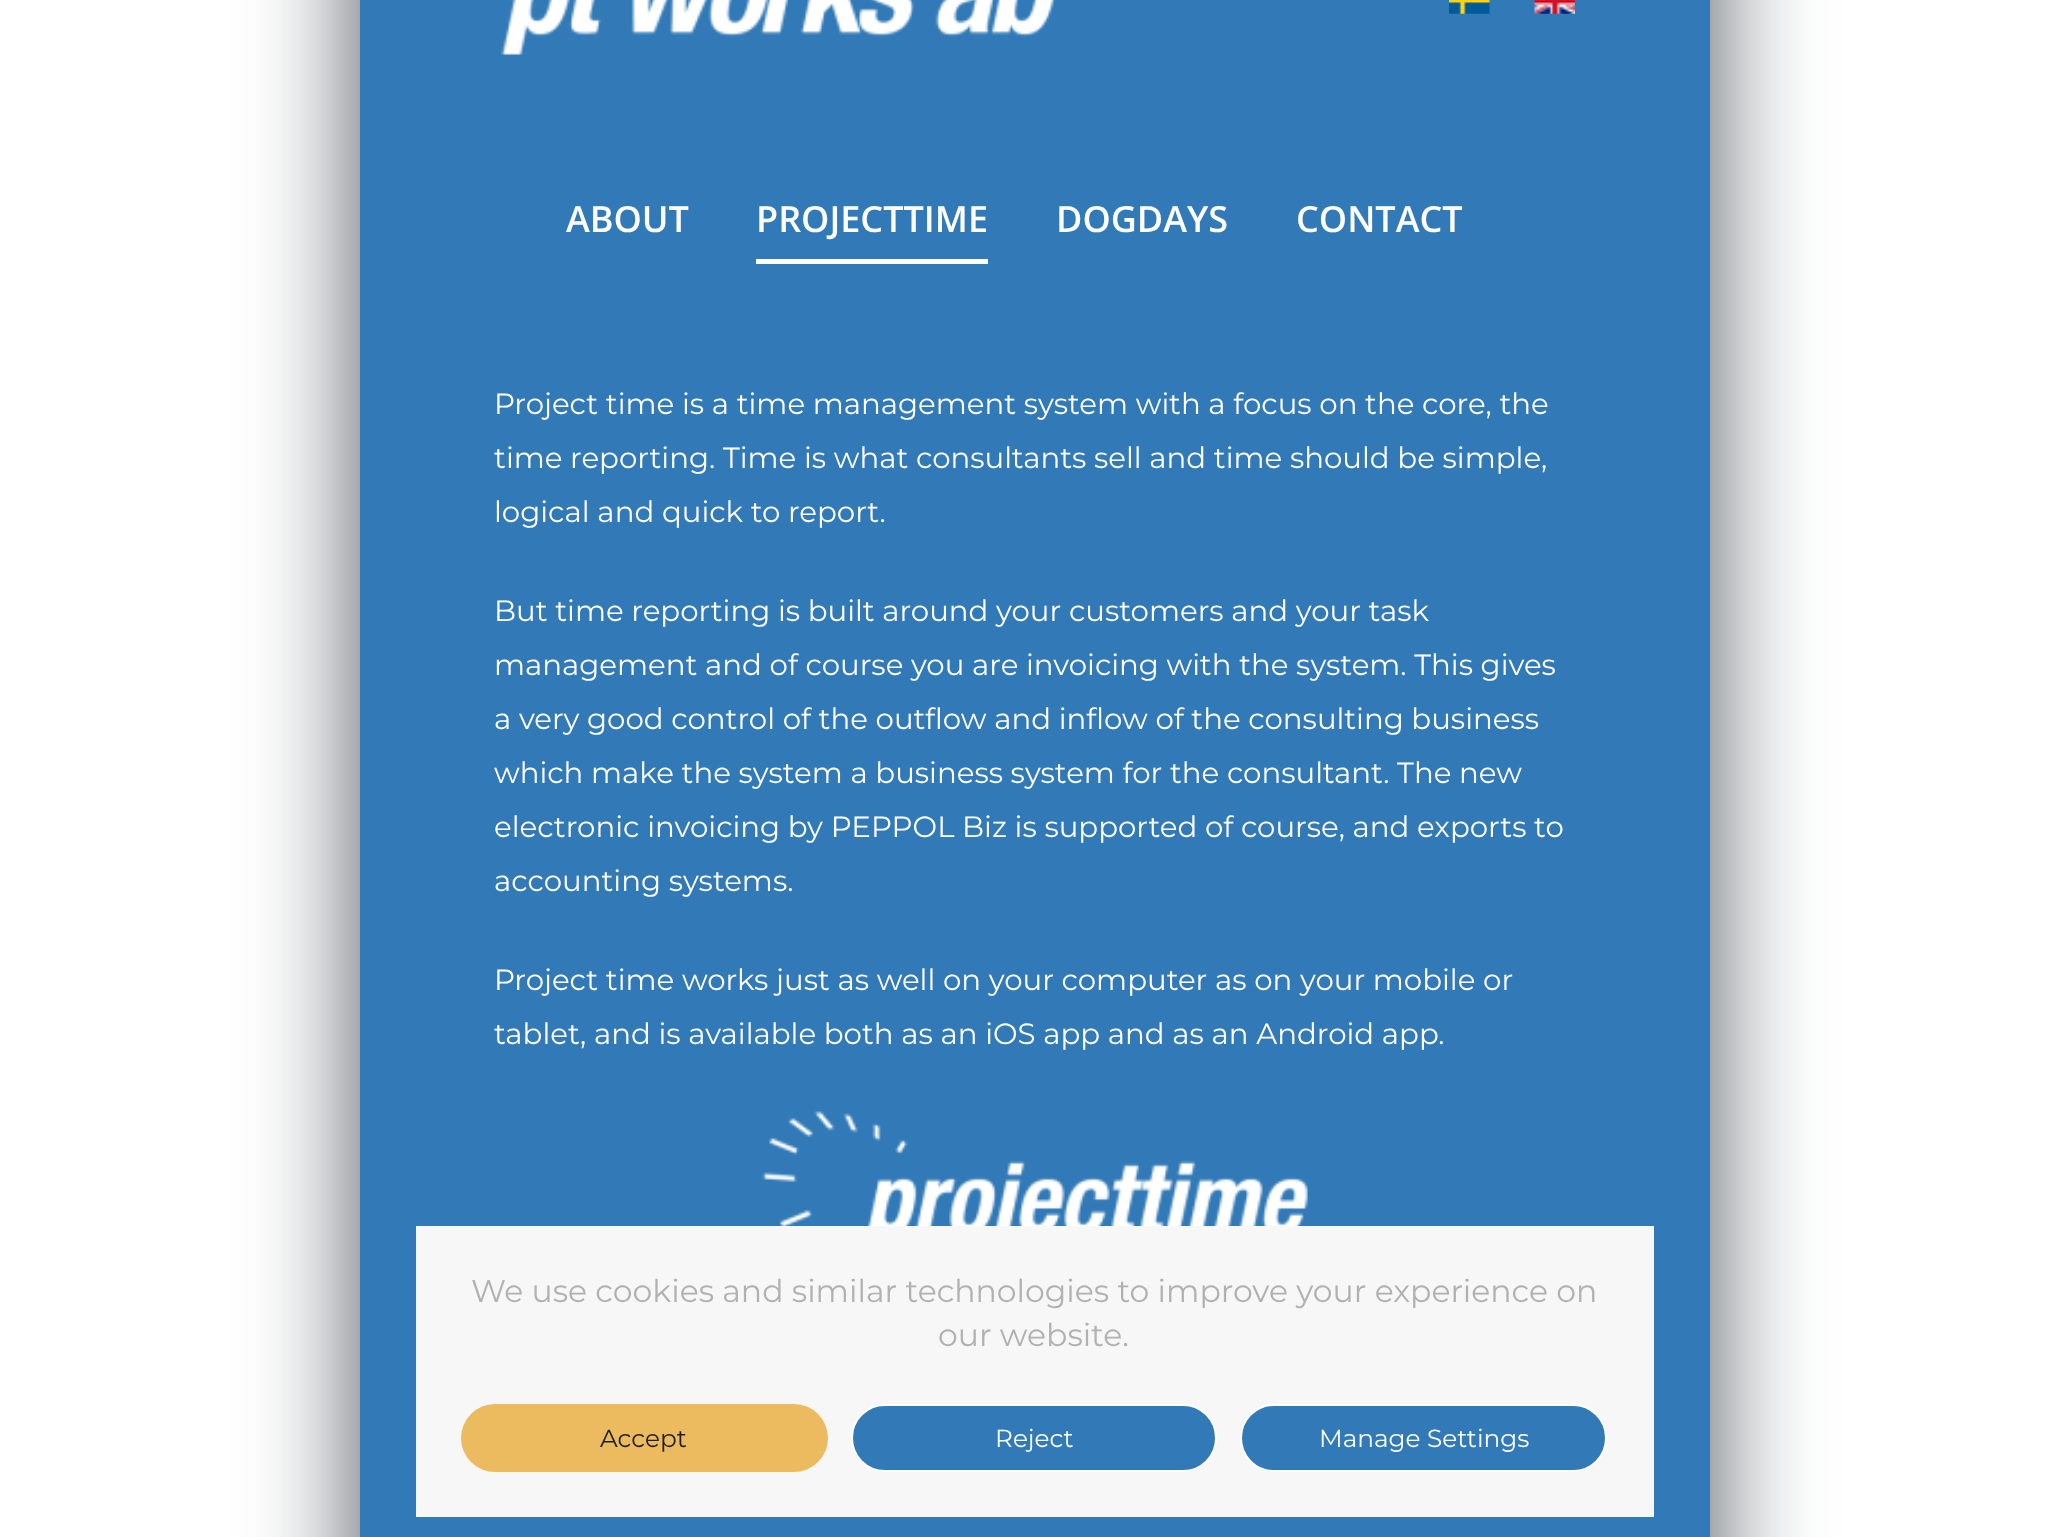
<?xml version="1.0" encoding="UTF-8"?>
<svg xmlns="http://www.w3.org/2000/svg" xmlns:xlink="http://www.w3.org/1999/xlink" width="2067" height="1537">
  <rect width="100%" height="100%" fill="#ffffff" />
  <rect x="360" y="-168" width="1350" height="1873" fill="#1d252f" fill-opacity="0.8" filter="blur(56px)" />
  <rect x="360" width="1350" height="1537" fill="#327ab7" />
  <image x="501" y="0" width="555" height="56" xlink:href="image1.png" />
  <image x="1449" y="0" width="41" height="14" xlink:href="image2.png" />
  <image x="1534" y="0" width="41" height="14" xlink:href="image3.png" />
  <rect x="756" y="259" width="232" height="5" fill="#ffffff" />
  <image x="762" y="1111" width="546" height="115" xlink:href="image4.png" />
  <rect x="416" y="1226" width="1238" height="291" fill="#f7f7f7" />
  <rect x="461" y="1404" width="367" height="68" rx="34" fill="#edbb5f" />
  <rect x="852" y="1405" width="364" height="66" rx="33" fill="#327ab7" stroke="#ffffff" stroke-width="2" />
  <rect x="1241" y="1405" width="365" height="66" rx="33" fill="#327ab7" stroke="#ffffff" stroke-width="2" />
  <text x="566" y="232" style="font-family: Open Sans; font-size: 36px; font-weight: 600; fill: #ffffff">ABOUT</text>
  <text x="756" y="232" style="font-family: Open Sans; font-size: 36px; font-weight: 600; fill: #ffffff">PROJECTTIME</text>
  <text x="1056" y="232" style="font-family: Open Sans; font-size: 36px; font-weight: 600; fill: #ffffff">DOGDAYS</text>
  <text x="1296" y="232" style="font-family: Open Sans; font-size: 36px; font-weight: 600; fill: #ffffff">CONTACT</text>
  <text x="494" y="414" style="font-family: Montserrat; font-size: 29.25px; font-weight: 100; fill: #ffffff">Project time is a time management system with a focus on the core, the</text>
  <text x="494" y="468" style="font-family: Montserrat; font-size: 29.25px; font-weight: 100; fill: #ffffff">time reporting. Time is what consultants sell and time should be simple,</text>
  <text x="494" y="522" style="font-family: Montserrat; font-size: 29.25px; font-weight: 100; fill: #ffffff">logical and quick to report.</text>
  <text x="494" y="621" style="font-family: Montserrat; font-size: 29.25px; font-weight: 100; fill: #ffffff">But time reporting is built around your customers and your task</text>
  <text x="494" y="675" style="font-family: Montserrat; font-size: 29.25px; font-weight: 100; fill: #ffffff">management and of course you are invoicing with the system. This gives</text>
  <text x="494" y="729" style="font-family: Montserrat; font-size: 29.25px; font-weight: 100; fill: #ffffff">a very good control of the outflow and inflow of the consulting business</text>
  <text x="494" y="783" style="font-family: Montserrat; font-size: 29.25px; font-weight: 100; fill: #ffffff">which make the system a business system for the consultant. The new</text>
  <text x="494" y="837" style="font-family: Montserrat; font-size: 29.25px; font-weight: 100; fill: #ffffff">electronic invoicing by PEPPOL Biz is supported of course, and exports to</text>
  <text x="494" y="891" style="font-family: Montserrat; font-size: 29.25px; font-weight: 100; fill: #ffffff">accounting systems.</text>
  <text x="494" y="990" style="font-family: Montserrat; font-size: 29.25px; font-weight: 100; fill: #ffffff">Project time works just as well on your computer as on your mobile or</text>
  <text x="494" y="1044" style="font-family: Montserrat; font-size: 29.25px; font-weight: 100; fill: #ffffff">tablet, and is available both as an iOS app and as an Android app.</text>
  <text x="471" y="1302" style="font-family: Montserrat; font-size: 31.5px; font-weight: 100; fill: #b2b0b3">We use cookies and similar technologies to improve your experience on</text>
  <text x="938" y="1346" style="font-family: Montserrat; font-size: 31.5px; font-weight: 100; fill: #b2b0b3">our website.</text>
  <text x="600" y="1447" style="font-family: Montserrat; font-size: 24.75px; font-weight: 100; fill: #1d1d1d">Accept</text>
  <text x="995" y="1447" style="font-family: Montserrat; font-size: 24.75px; font-weight: 100; fill: #ffffff">Reject</text>
  <text x="1319" y="1447" style="font-family: Montserrat; font-size: 24.75px; font-weight: 100; fill: #ffffff">Manage Settings</text>
</svg>
